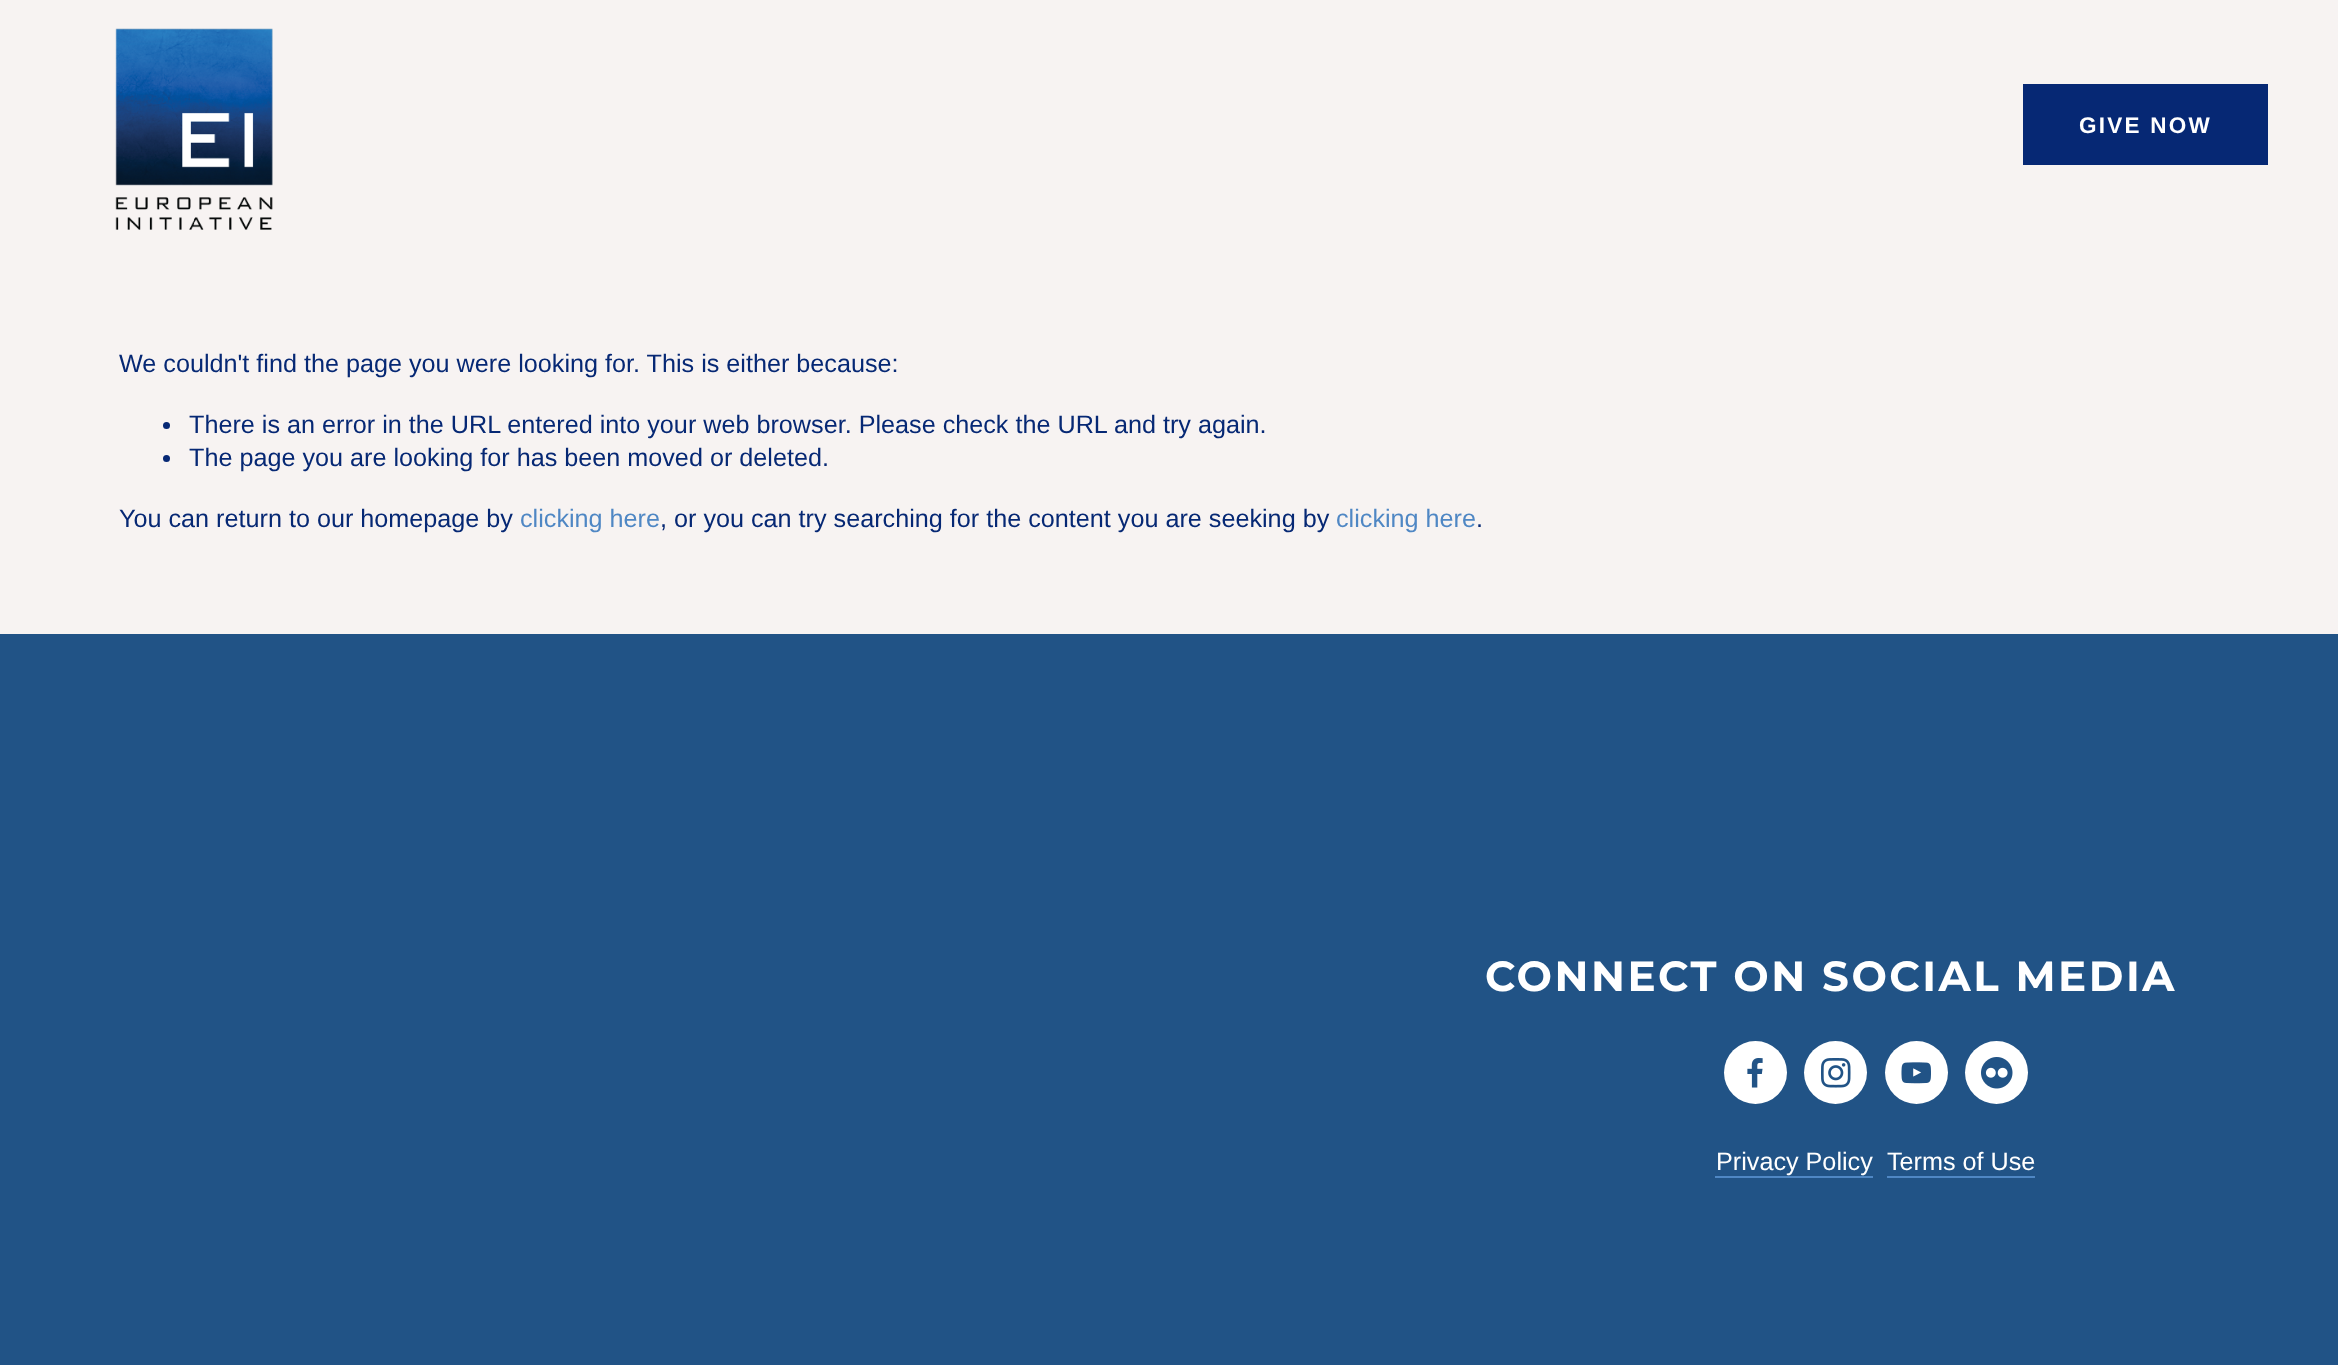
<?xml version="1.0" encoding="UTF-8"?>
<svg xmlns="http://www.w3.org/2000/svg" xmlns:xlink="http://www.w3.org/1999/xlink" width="2338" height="1365">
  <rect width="100%" height="100%" fill="#f7f3f2" />
  <image x="115" y="28" width="158" height="202" xlink:href="image1.png" />
  <rect x="2023" y="84" width="245" height="81" fill="#062874" />
  <circle cx="166.5" cy="425.5" r="3.5" fill="#062874" />
  <circle cx="166.5" cy="458.5" r="3.5" fill="#062874" />
  <rect y="634" width="2338" height="731" fill="#215386" />
  <circle cx="1755.5" cy="1072.5" r="31.5" fill="#ffffff" />
  <image x="1747" y="1058" width="16" height="30" xlink:href="image2.png" />
  <circle cx="1835.5" cy="1072.5" r="31.5" fill="#ffffff" />
  <image x="1821" y="1058" width="30" height="30" xlink:href="image3.png" />
  <circle cx="1916.5" cy="1072.5" r="31.5" fill="#ffffff" />
  <image x="1901" y="1062" width="30" height="22" xlink:href="image4.png" />
  <circle cx="1996.5" cy="1072.5" r="31.5" fill="#ffffff" />
  <image x="1981" y="1057" width="32" height="32" xlink:href="image5.png" />
  <rect x="1715" y="1176" width="158" height="2" fill="#4f87c4" />
  <rect x="1887" y="1176" width="148" height="2" fill="#4f87c4" />
  <text x="2079" y="133" style="font-family: Liberation Sans; font-size: 22.5px; font-weight: bold; letter-spacing: 2.25px; fill: #ffffff">GIVE NOW</text>
  <text x="119" y="372" style="font-family: Liberation Sans; font-size: 25.2px; fill: #062874">We couldn't find the page you were looking for. This is either because:</text>
  <text x="189" y="433" style="font-family: Liberation Sans; font-size: 25.2px; fill: #062874">There is an error in the URL entered into your web browser. Please check the URL and try again.</text>
  <text x="189" y="466" style="font-family: Liberation Sans; font-size: 25.2px; fill: #062874">The page you are looking for has been moved or deleted.</text>
  <text x="119" y="527" style="font-family: Liberation Sans; font-size: 25.2px; fill: #062874">You can return to our homepage by</text>
  <text x="520" y="527" style="font-family: Liberation Sans; font-size: 25.2px; fill: #4f87c4">clicking here</text>
  <text x="660" y="527" style="font-family: Liberation Sans; font-size: 25.2px; fill: #062874">, or you can try searching for the content you are seeking by</text>
  <text x="1336" y="527" style="font-family: Liberation Sans; font-size: 25.2px; fill: #4f87c4">clicking here</text>
  <text x="1476" y="527" style="font-family: Liberation Sans; font-size: 25.2px; fill: #062874">.</text>
  <text x="1485" y="991" style="font-family: Montserrat; font-size: 42px; font-weight: bold; letter-spacing: 2.5px; fill: #ffffff">CONNECT ON SOCIAL MEDIA</text>
  <text x="1716" y="1170" style="font-family: Liberation Sans; font-size: 25.2px; fill: #ffffff">Privacy Policy</text>
  <text x="1887" y="1170" style="font-family: Liberation Sans; font-size: 25.2px; fill: #ffffff">Terms of Use</text>
</svg>
